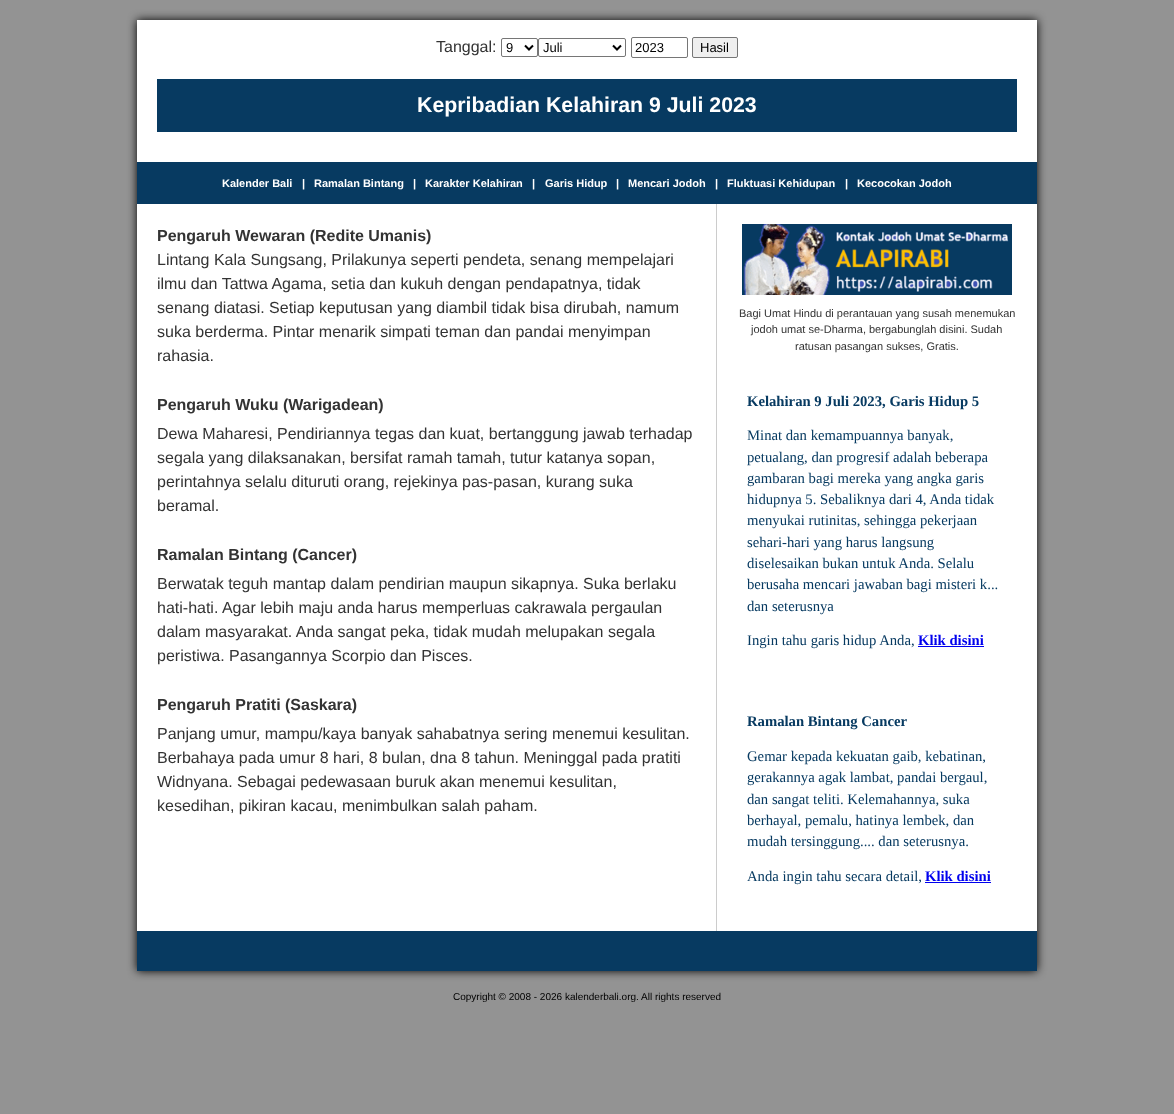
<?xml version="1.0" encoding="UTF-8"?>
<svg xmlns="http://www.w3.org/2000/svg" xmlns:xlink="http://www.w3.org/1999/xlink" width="1174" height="1114">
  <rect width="100%" height="100%" fill="#939393" />
  <rect x="137" y="20" width="900" height="951" fill="#000000" filter="blur(5px)" />
  <rect x="137" y="20" width="900" height="911" fill="#ffffff" />
  <rect x="501.5" y="38.5" width="36" height="18" rx="1.5" fill="none" stroke="#767676" />
  <path d="M 525 45.5 l 4 4 l 4 -4" fill="none" stroke="#000000" stroke-width="2" />
  <rect x="538.5" y="38.5" width="87" height="18" rx="1.5" fill="none" stroke="#767676" />
  <path d="M 613 45.5 l 4 4 l 4 -4" fill="none" stroke="#000000" stroke-width="2" />
  <rect x="631.5" y="37.5" width="56" height="20" rx="1.5" fill="none" stroke="#767676" />
  <rect x="692.5" y="37.5" width="45" height="20" rx="1.5" fill="#efefef" stroke="#767676" />
  <rect x="157" y="79" width="860" height="53" fill="#073a61" />
  <rect x="137" y="162" width="900" height="42" fill="#073a61" />
  <rect x="716" y="204" width="1" height="727" fill="#cccccc" />
  <image x="742" y="224" width="270" height="71" xlink:href="image1.png" />
  <rect x="918" y="646" width="66" height="1" fill="#0000ee" />
  <rect x="925" y="882" width="66" height="1" fill="#0000ee" />
  <rect x="137" y="931" width="900" height="40" fill="#073a61" />
  <text x="436" y="52" style="font-family: Liberation Sans; font-size: 16px; fill: #333333">Tanggal:</text>
  <text x="506" y="52" style="font-family: Liberation Sans; font-size: 13px; fill: #000000">9</text>
  <text x="543" y="52" style="font-family: Liberation Sans; font-size: 13px; fill: #000000">Juli</text>
  <text x="635" y="52" style="font-family: Liberation Sans; font-size: 13px; fill: #000000">2023</text>
  <text x="700" y="52" style="font-family: Liberation Sans; font-size: 13px; fill: #000000">Hasil</text>
  <text x="417" y="112" style="font-family: Liberation Sans; font-size: 21.3px; font-weight: bold; fill: #ffffff">Kepribadian Kelahiran 9 Juli 2023</text>
  <text x="222" y="187" style="font-family: Liberation Sans; font-size: 11px; font-weight: bold; fill: #ffffff">Kalender Bali</text>
  <text x="302" y="187" style="font-family: Liberation Sans; font-size: 11px; font-weight: bold; fill: #ffffff">|</text>
  <text x="314" y="187" style="font-family: Liberation Sans; font-size: 11px; font-weight: bold; fill: #ffffff">Ramalan Bintang</text>
  <text x="413" y="187" style="font-family: Liberation Sans; font-size: 11px; font-weight: bold; fill: #ffffff">|</text>
  <text x="425" y="187" style="font-family: Liberation Sans; font-size: 11px; font-weight: bold; fill: #ffffff">Karakter Kelahiran</text>
  <text x="532" y="187" style="font-family: Liberation Sans; font-size: 11px; font-weight: bold; fill: #ffffff">|</text>
  <text x="545" y="187" style="font-family: Liberation Sans; font-size: 11px; font-weight: bold; fill: #ffffff">Garis Hidup</text>
  <text x="616" y="187" style="font-family: Liberation Sans; font-size: 11px; font-weight: bold; fill: #ffffff">|</text>
  <text x="628" y="187" style="font-family: Liberation Sans; font-size: 11px; font-weight: bold; fill: #ffffff">Mencari Jodoh</text>
  <text x="715" y="187" style="font-family: Liberation Sans; font-size: 11px; font-weight: bold; fill: #ffffff">|</text>
  <text x="727" y="187" style="font-family: Liberation Sans; font-size: 11px; font-weight: bold; fill: #ffffff">Fluktuasi Kehidupan</text>
  <text x="845" y="187" style="font-family: Liberation Sans; font-size: 11px; font-weight: bold; fill: #ffffff">|</text>
  <text x="857" y="187" style="font-family: Liberation Sans; font-size: 11px; font-weight: bold; fill: #ffffff">Kecocokan Jodoh</text>
  <text x="157" y="241" style="font-family: Liberation Sans; font-size: 16px; font-weight: bold; fill: #333333">Pengaruh Wewaran (Redite Umanis)</text>
  <text x="157" y="265" style="font-family: Liberation Sans; font-size: 16px; fill: #333333">Lintang Kala Sungsang, Prilakunya seperti pendeta, senang mempelajari</text>
  <text x="157" y="289" style="font-family: Liberation Sans; font-size: 16px; fill: #333333">ilmu dan Tattwa Agama, setia dan kukuh dengan pendapatnya, tidak</text>
  <text x="157" y="313" style="font-family: Liberation Sans; font-size: 16px; fill: #333333">senang diatasi. Setiap keputusan yang diambil tidak bisa dirubah, namum</text>
  <text x="157" y="337" style="font-family: Liberation Sans; font-size: 16px; fill: #333333">suka berderma. Pintar menarik simpati teman dan pandai menyimpan</text>
  <text x="157" y="361" style="font-family: Liberation Sans; font-size: 16px; fill: #333333">rahasia.</text>
  <text x="157" y="410" style="font-family: Liberation Sans; font-size: 16px; font-weight: bold; fill: #333333">Pengaruh Wuku (Warigadean)</text>
  <text x="157" y="439" style="font-family: Liberation Sans; font-size: 16px; fill: #333333">Dewa Maharesi, Pendiriannya tegas dan kuat, bertanggung jawab terhadap</text>
  <text x="157" y="463" style="font-family: Liberation Sans; font-size: 16px; fill: #333333">segala yang dilaksanakan, bersifat ramah tamah, tutur katanya sopan,</text>
  <text x="157" y="487" style="font-family: Liberation Sans; font-size: 16px; fill: #333333">perintahnya selalu dituruti orang, rejekinya pas-pasan, kurang suka</text>
  <text x="157" y="511" style="font-family: Liberation Sans; font-size: 16px; fill: #333333">beramal.</text>
  <text x="157" y="560" style="font-family: Liberation Sans; font-size: 16px; font-weight: bold; fill: #333333">Ramalan Bintang (Cancer)</text>
  <text x="157" y="589" style="font-family: Liberation Sans; font-size: 16px; fill: #333333">Berwatak teguh mantap dalam pendirian maupun sikapnya. Suka berlaku</text>
  <text x="157" y="613" style="font-family: Liberation Sans; font-size: 16px; fill: #333333">hati-hati. Agar lebih maju anda harus memperluas cakrawala pergaulan</text>
  <text x="157" y="637" style="font-family: Liberation Sans; font-size: 16px; fill: #333333">dalam masyarakat. Anda sangat peka, tidak mudah melupakan segala</text>
  <text x="157" y="661" style="font-family: Liberation Sans; font-size: 16px; fill: #333333">peristiwa. Pasangannya Scorpio dan Pisces.</text>
  <text x="157" y="710" style="font-family: Liberation Sans; font-size: 16px; font-weight: bold; fill: #333333">Pengaruh Pratiti (Saskara)</text>
  <text x="157" y="739" style="font-family: Liberation Sans; font-size: 16px; fill: #333333">Panjang umur, mampu/kaya banyak sahabatnya sering menemui kesulitan.</text>
  <text x="157" y="763" style="font-family: Liberation Sans; font-size: 16px; fill: #333333">Berbahaya pada umur 8 hari, 8 bulan, dna 8 tahun. Meninggal pada pratiti</text>
  <text x="157" y="787" style="font-family: Liberation Sans; font-size: 16px; fill: #333333">Widnyana. Sebagai pedewasaan buruk akan menemui kesulitan,</text>
  <text x="157" y="811" style="font-family: Liberation Sans; font-size: 16px; fill: #333333">kesedihan, pikiran kacau, menimbulkan salah paham.</text>
  <text x="739" y="317" style="font-family: Liberation Sans; font-size: 11px; fill: #333333">Bagi Umat Hindu di perantauan yang susah menemukan</text>
  <text x="751" y="333" style="font-family: Liberation Sans; font-size: 11px; fill: #333333">jodoh umat se-Dharma, bergabunglah disini. Sudah</text>
  <text x="795" y="350" style="font-family: Liberation Sans; font-size: 11px; fill: #333333">ratusan pasangan sukses, Gratis.</text>
  <text x="747" y="406" style="font-family: Liberation Serif; font-size: 14.7px; font-weight: bold; fill: #073a61">Kelahiran 9 Juli 2023, Garis Hidup 5</text>
  <text x="747" y="440" style="font-family: Liberation Serif; font-size: 14.7px; fill: #073a61">Minat dan kemampuannya banyak,</text>
  <text x="747" y="462" style="font-family: Liberation Serif; font-size: 14.7px; fill: #073a61">petualang, dan progresif adalah beberapa</text>
  <text x="747" y="483" style="font-family: Liberation Serif; font-size: 14.7px; fill: #073a61">gambaran bagi mereka yang angka garis</text>
  <text x="747" y="504" style="font-family: Liberation Serif; font-size: 14.7px; fill: #073a61">hidupnya 5. Sebaliknya dari 4, Anda tidak</text>
  <text x="747" y="525" style="font-family: Liberation Serif; font-size: 14.7px; fill: #073a61">menyukai rutinitas, sehingga pekerjaan</text>
  <text x="747" y="547" style="font-family: Liberation Serif; font-size: 14.7px; fill: #073a61">sehari-hari yang harus langsung</text>
  <text x="747" y="568" style="font-family: Liberation Serif; font-size: 14.7px; fill: #073a61">diselesaikan bukan untuk Anda. Selalu</text>
  <text x="747" y="589" style="font-family: Liberation Serif; font-size: 14.7px; fill: #073a61">berusaha mencari jawaban bagi misteri k...</text>
  <text x="747" y="611" style="font-family: Liberation Serif; font-size: 14.7px; fill: #073a61">dan seterusnya</text>
  <text x="747" y="645" style="font-family: Liberation Serif; font-size: 14.7px; fill: #073a61">Ingin tahu garis hidup Anda,</text>
  <text x="918" y="645" style="font-family: Liberation Serif; font-size: 14.7px; font-weight: bold; fill: #0000ee">Klik disini</text>
  <text x="747" y="726" style="font-family: Liberation Serif; font-size: 14.7px; font-weight: bold; fill: #073a61">Ramalan Bintang Cancer</text>
  <text x="747" y="761" style="font-family: Liberation Serif; font-size: 14.7px; fill: #073a61">Gemar kepada kekuatan gaib, kebatinan,</text>
  <text x="747" y="782" style="font-family: Liberation Serif; font-size: 14.7px; fill: #073a61">gerakannya agak lambat, pandai bergaul,</text>
  <text x="747" y="804" style="font-family: Liberation Serif; font-size: 14.7px; fill: #073a61">dan sangat teliti. Kelemahannya, suka</text>
  <text x="747" y="825" style="font-family: Liberation Serif; font-size: 14.7px; fill: #073a61">berhayal, pemalu, hatinya lembek, dan</text>
  <text x="747" y="846" style="font-family: Liberation Serif; font-size: 14.7px; fill: #073a61">mudah tersinggung.... dan seterusnya.</text>
  <text x="747" y="881" style="font-family: Liberation Serif; font-size: 14.7px; fill: #073a61">Anda ingin tahu secara detail,</text>
  <text x="925" y="881" style="font-family: Liberation Serif; font-size: 14.7px; font-weight: bold; fill: #0000ee">Klik disini</text>
  <text x="453" y="1000" style="font-family: Liberation Sans; font-size: 10px; fill: #000000">Copyright © 2008 - 2026 kalenderbali.org. All rights reserved</text>
</svg>
